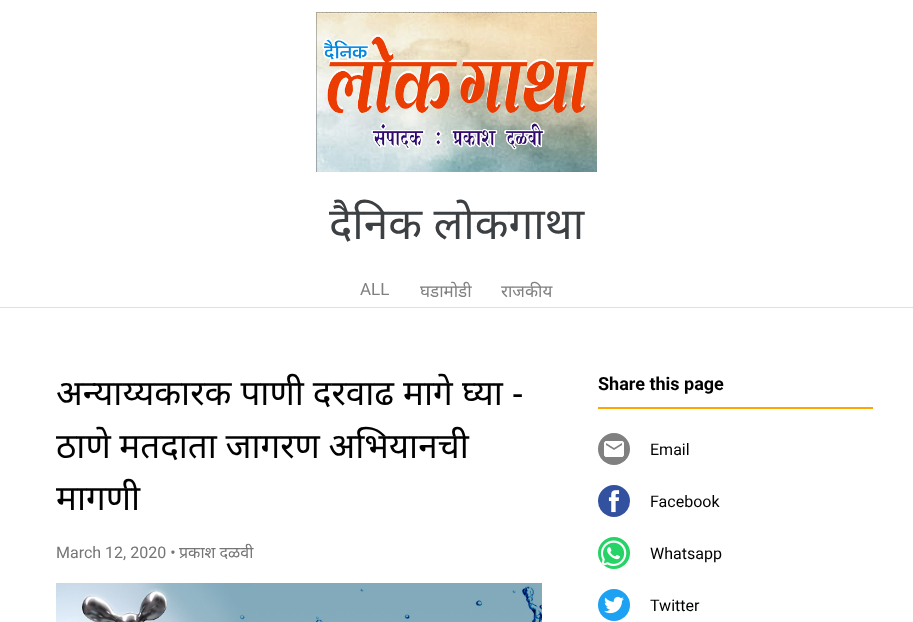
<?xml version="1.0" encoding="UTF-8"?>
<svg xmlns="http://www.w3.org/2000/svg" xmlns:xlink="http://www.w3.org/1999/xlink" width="913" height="622">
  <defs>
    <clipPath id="clip1"><rect x="313" y="191" width="287" height="66" /></clipPath>
  </defs>
  <rect width="100%" height="100%" fill="#ffffff" />
  <rect y="307" width="913" height="1" fill="#e0e0e0" />
  <image x="316" y="12" width="281" height="160" xlink:href="image1.png" />
  <image x="56" y="583" width="486" height="39" xlink:href="image2.png" />
  <rect x="598" y="407" width="275" height="2" fill="#ffa500" />
  <circle cx="614" cy="449" r="16" fill="#808080" />
  <image x="604" y="441" width="20" height="16" xlink:href="image3.png" />
  <circle cx="614" cy="501" r="16" fill="#32529f" />
  <image x="608" y="490" width="12" height="23" xlink:href="image4.png" />
  <circle cx="614" cy="553" r="16" fill="#25d366" />
  <image x="600" y="540" width="27" height="26" xlink:href="image5.png" />
  <circle cx="614" cy="605" r="16" fill="#1da1f2" />
  <image x="604" y="596" width="20" height="18" xlink:href="image6.png" />
  <g clip-path="url(#clip1)">
    <text x="329" y="239" style="font-family: Noto Sans; font-size: 44px; fill: #3c4043">दैनिक लोकगाथा</text>
  </g>
  <text x="360" y="295" style="font-family: Roboto; font-size: 17px; fill: #808080">ALL</text>
  <text x="420" y="297" style="font-family: Noto Sans; font-size: 17px; fill: #808080">घडामोडी</text>
  <text x="501" y="297" style="font-family: Noto Sans; font-size: 17px; fill: #808080">राजकीय</text>
  <text x="56" y="405" style="font-family: Noto Sans; font-size: 35px; fill: #000000">अन्याय्यकारक पाणी दरवाढ मागे घ्या -</text>
  <text x="56" y="458" word-spacing="-0.5" style="font-family: Noto Sans; font-size: 35px; fill: #000000">ठाणे मतदाता जागरण अभियानची</text>
  <text x="56" y="510" style="font-family: Noto Sans; font-size: 35px; fill: #000000">मागणी</text>
  <text x="56" y="558" style="font-family: Roboto; font-size: 16px; fill: #757575">March 12, 2020 •</text>
  <text x="179" y="558" style="font-family: Noto Sans; font-size: 16px; fill: #757575">प्रकाश दळवी</text>
  <text x="598" y="390" style="font-family: Roboto; font-size: 18px; font-weight: bold; fill: #000000">Share this page</text>
  <text x="650" y="455" style="font-family: Roboto; font-size: 16px; fill: #000000">Email</text>
  <text x="650" y="507" style="font-family: Roboto; font-size: 16px; fill: #000000">Facebook</text>
  <text x="650" y="559" style="font-family: Roboto; font-size: 16px; fill: #000000">Whatsapp</text>
  <text x="650" y="611" style="font-family: Roboto; font-size: 16px; fill: #000000">Twitter</text>
</svg>
